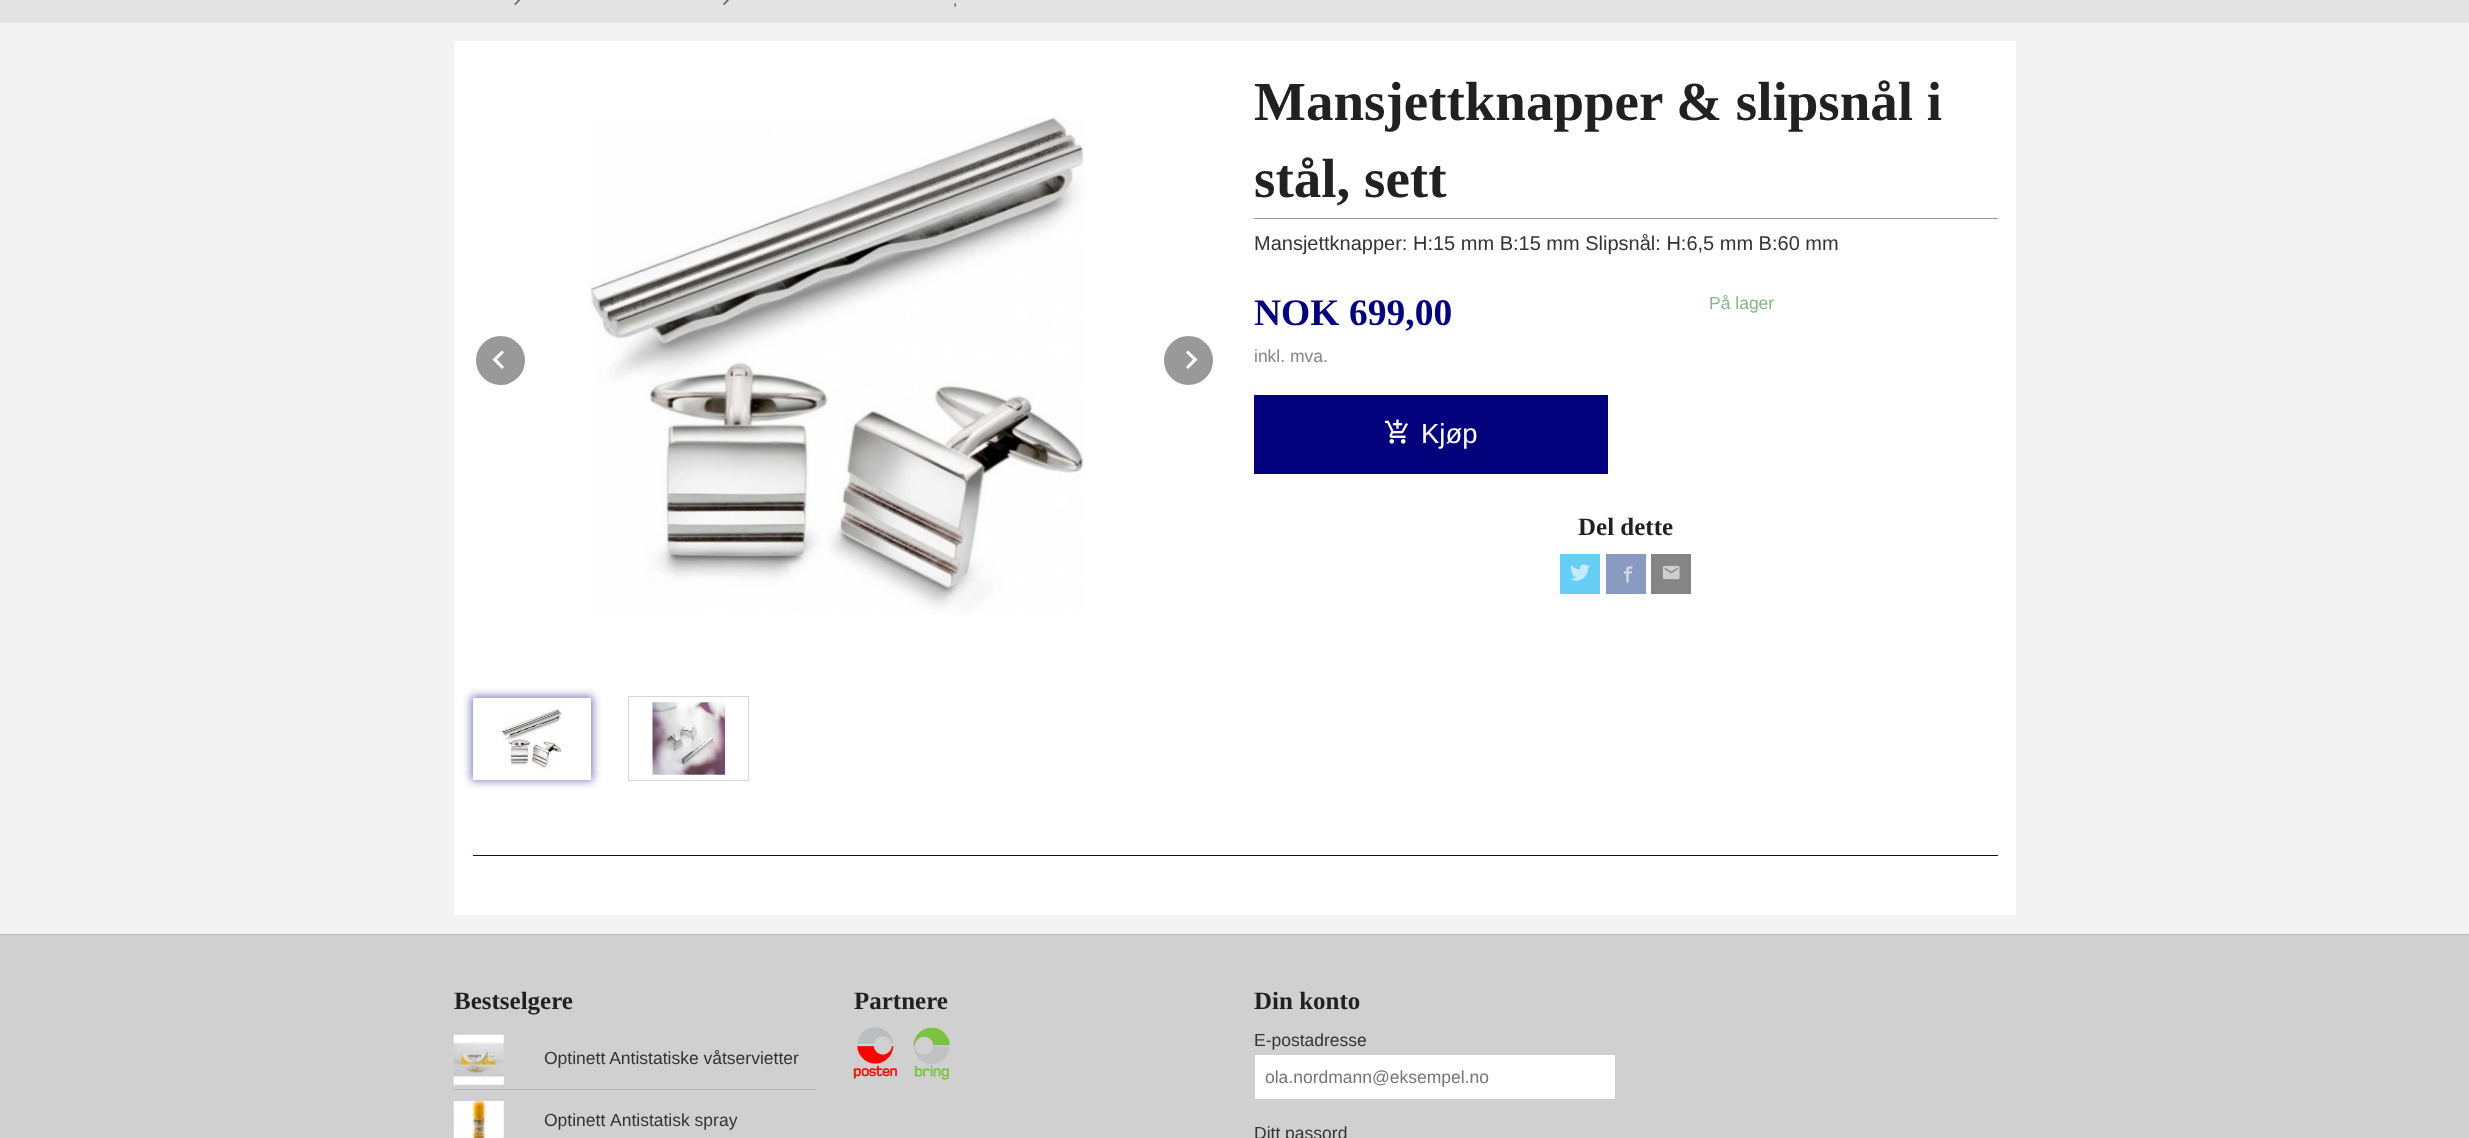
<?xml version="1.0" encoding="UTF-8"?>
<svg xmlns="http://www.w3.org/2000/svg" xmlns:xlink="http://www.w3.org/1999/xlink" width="2469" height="1138">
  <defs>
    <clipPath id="clip1"><path d="M 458 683 h 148 v 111 h -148 z m 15 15 h 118 v 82 h -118 z" clip-rule="evenodd" /></clipPath>
  </defs>
  <rect width="100%" height="100%" fill="#f3f3f3" />
  <rect width="2469" height="23" fill="#e3e3e3" />
  <image x="514" y="0" width="6" height="5" xlink:href="image1.png" />
  <image x="723" y="0" width="6" height="5" xlink:href="image2.png" />
  <rect x="454" y="41" width="1562" height="874" fill="#ffffff" />
  <image x="590" y="116" width="495" height="499" xlink:href="image3.png" />
  <circle cx="500.5" cy="360.5" r="26" fill="#999999" stroke="#ffffff" stroke-width="3" />
  <path d="M 504 352.5 l -2 -2 l -9.5 9 l 9.5 9.5 l 2 -2 l -7 -7.5 z" fill="#ffffff" />
  <circle cx="1188.5" cy="360.5" r="26" fill="#999999" stroke="#ffffff" stroke-width="3" />
  <path d="M 1188 350.5 l -2 2 l 7 7 l -7 7.5 l 2 2 l 9.5 -9.5 z" fill="#ffffff" />
  <g clip-path="url(#clip1)">
    <rect x="471" y="696" width="122" height="85" fill="#04017d" fill-opacity="0.5" filter="blur(4px)" />
  </g>
  <image x="501" y="709" width="62" height="62" xlink:href="image4.png" />
  <rect x="628.5" y="696.5" width="120" height="84" fill="none" stroke="#d6d6d6" />
  <image x="652" y="702" width="73" height="73" xlink:href="image5.png" />
  <rect x="1254" y="218" width="744" height="1" fill="#999999" />
  <rect x="1254" y="395" width="354" height="79" fill="#04017d" />
  <image x="1384" y="419" width="24" height="25" xlink:href="image6.png" />
  <rect x="1560" y="554" width="40" height="40" fill="#66cdf4" />
  <image x="1570" y="564" width="20" height="17" xlink:href="image7.png" />
  <rect x="1606" y="554" width="40" height="40" fill="#899bc1" />
  <image x="1623" y="566" width="10" height="17" xlink:href="image8.png" />
  <rect x="1651" y="554" width="40" height="40" fill="#858585" />
  <image x="1662" y="565" width="18" height="15" xlink:href="image9.png" />
  <rect x="473" y="855" width="1525" height="1" fill="#04017d" />
  <rect y="935" width="2469" height="203" fill="#d0d0d0" />
  <rect y="934" width="2469" height="1" fill="#b6b6b6" />
  <rect x="454" y="1089" width="362" height="1" fill="#b1b1b1" />
  <image x="453" y="1034" width="51" height="51" xlink:href="image10.png" />
  <image x="453" y="1101" width="51" height="37" xlink:href="image11.png" />
  <image x="853" y="1027" width="97" height="53" xlink:href="image12.png" />
  <rect x="1254.5" y="1054.5" width="361" height="45" fill="#ffffff" stroke="#cccccc" />
  <text x="953" y="5" style="font-family: Liberation Sans; font-size: 15px; fill: #494949">,</text>
  <text x="1254" y="120" style="font-family: Liberation Serif; font-size: 55px; font-weight: bold; fill: #212121">Mansjettknapper &amp; slipsnål i</text>
  <text x="1254" y="197" style="font-family: Liberation Serif; font-size: 55px; font-weight: bold; fill: #212121">stål, sett</text>
  <text x="1254" y="250" style="font-family: Liberation Sans; font-size: 20px; fill: #333333">Mansjettknapper: H:15 mm B:15 mm Slipsnål: H:6,5 mm B:60 mm</text>
  <text x="1254" y="325" style="font-family: Liberation Serif; font-size: 37.5px; font-weight: bold; fill: #04017d">NOK</text>
  <text x="1349" y="325" style="font-family: Liberation Serif; font-size: 37.5px; font-weight: bold; fill: #04017d">699,00</text>
  <text x="1254" y="362" style="font-family: Liberation Sans; font-size: 17.5px; fill: #858585">inkl. mva.</text>
  <text x="1709" y="309" style="font-family: Liberation Sans; font-size: 17.5px; fill: #88b588">På lager</text>
  <text x="1421" y="443" style="font-family: Liberation Sans; font-size: 27.5px; fill: #ffffff">Kjøp</text>
  <text x="1578" y="535" style="font-family: Liberation Serif; font-size: 25px; font-weight: bold; fill: #212121">Del dette</text>
  <text x="454" y="1009" style="font-family: Liberation Serif; font-size: 25px; font-weight: bold; fill: #212121">Bestselgere</text>
  <text x="544" y="1064" style="font-family: Liberation Sans; font-size: 17.5px; fill: #333333">Optinett Antistatiske våtservietter</text>
  <text x="544" y="1126" style="font-family: Liberation Sans; font-size: 17.5px; fill: #333333">Optinett</text>
  <text x="610" y="1126" style="font-family: Liberation Sans; font-size: 17.5px; fill: #333333">Antistatisk spray</text>
  <text x="854" y="1009" style="font-family: Liberation Serif; font-size: 25px; font-weight: bold; fill: #212121">Partnere</text>
  <text x="1254" y="1009" style="font-family: Liberation Serif; font-size: 25px; font-weight: bold; fill: #212121">Din konto</text>
  <text x="1254" y="1046" style="font-family: Liberation Sans; font-size: 17.5px; fill: #333333">E-postadresse</text>
  <text x="1265" y="1083" style="font-family: Liberation Sans; font-size: 17.5px; fill: #757575">ola.nordmann@eksempel.no</text>
  <text x="1254" y="1139" style="font-family: Liberation Sans; font-size: 17.5px; fill: #333333">Ditt passord</text>
</svg>
